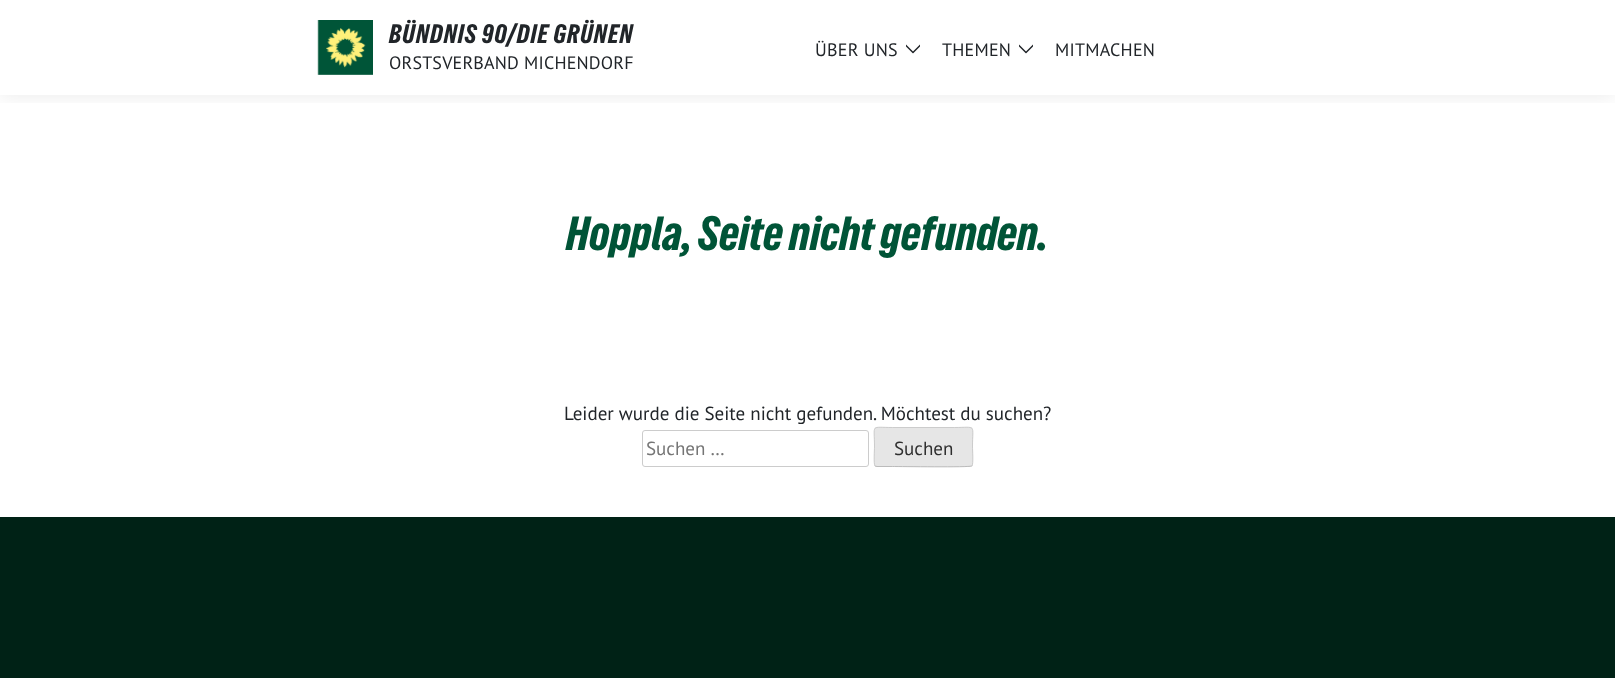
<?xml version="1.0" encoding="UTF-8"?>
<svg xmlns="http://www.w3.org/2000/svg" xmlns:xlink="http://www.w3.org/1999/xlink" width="1615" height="678">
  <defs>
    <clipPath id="clip1"><rect x="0" y="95" width="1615" height="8" /></clipPath>
    <clipPath id="clip2"><rect x="906" y="36" width="14" height="24" /></clipPath>
    <clipPath id="clip3"><rect x="1019" y="36" width="14" height="24" /></clipPath>
  </defs>
  <rect width="100%" height="100%" fill="#ffffff" />
  <g clip-path="url(#clip1)">
    <rect y="1" width="1615" height="95" fill="#000000" fill-opacity="0.08" filter="blur(10px)" />
  </g>
  <image x="317" y="20" width="56" height="55" xlink:href="image1.png" />
  <g clip-path="url(#clip2)">
    <path d="M 904 43.5 l 9 9 l 9 -9" fill="none" stroke="#212529" stroke-width="1.5" stroke-linecap="round" stroke-linejoin="round" />
  </g>
  <g clip-path="url(#clip3)">
    <path d="M 1017 43.5 l 9 9 l 9 -9" fill="none" stroke="#212529" stroke-width="1.5" stroke-linecap="round" stroke-linejoin="round" />
  </g>
  <rect x="642.5" y="430.5" width="226" height="36" rx="2.5" fill="none" stroke="#cccccc" />
  <rect x="874" y="427" width="99" height="40" rx="3" fill="#e6e6e6" />
  <path d="M 972 466 h -0.5 c -2 1.5 -71 0.5 -79 0.5 h -15.5 l -2 -0.5" fill="none" stroke="#bbbbbb" />
  <path d="M 875 466 c -1.5 -2 -0.5 -16 -0.5 -19 c 0 -23.5 -4.5 -19.5 18 -19.5 h 62 c 22.5 0 18 -4 18 19.5 c 0 3 1 17 -0.5 19" fill="none" stroke="#cccccc" />
  <rect y="517" width="1615" height="161" fill="#002216" />
  <text x="389" y="43" style="font-family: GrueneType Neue; font-size: 25px; letter-spacing: 1px; fill: #212529">BÜNDNIS 90/DIE GRÜNEN</text>
  <text x="389" y="69" style="font-family: PT Sans; font-size: 18px; letter-spacing: 0.2px; fill: #212529">ORSTSVERBAND MICHENDORF</text>
  <text x="815" y="56" style="font-family: PT Sans; font-size: 18px; letter-spacing: 0.25px; fill: #212529">ÜBER UNS</text>
  <text x="942" y="56" style="font-family: PT Sans; font-size: 18px; letter-spacing: 0.25px; fill: #212529">THEMEN</text>
  <text x="1055" y="56" style="font-family: PT Sans; font-size: 18px; letter-spacing: 0.25px; fill: #212529">MITMACHEN</text>
  <text x="566" y="250" style="font-family: GrueneType Neue; font-size: 45px; fill: #005437">Hoppla, Seite nicht gefunden.</text>
  <text x="564" y="420" style="font-family: PT Sans; font-size: 19px; fill: #212529">Leider wurde die Seite nicht gefunden. Möchtest du suchen?</text>
  <text x="646" y="455" style="font-family: PT Sans; font-size: 19px; fill: #757575">Suchen …</text>
  <text x="894" y="455" style="font-family: PT Sans; font-size: 19px; fill: #2e2e2e">Suchen</text>
</svg>
